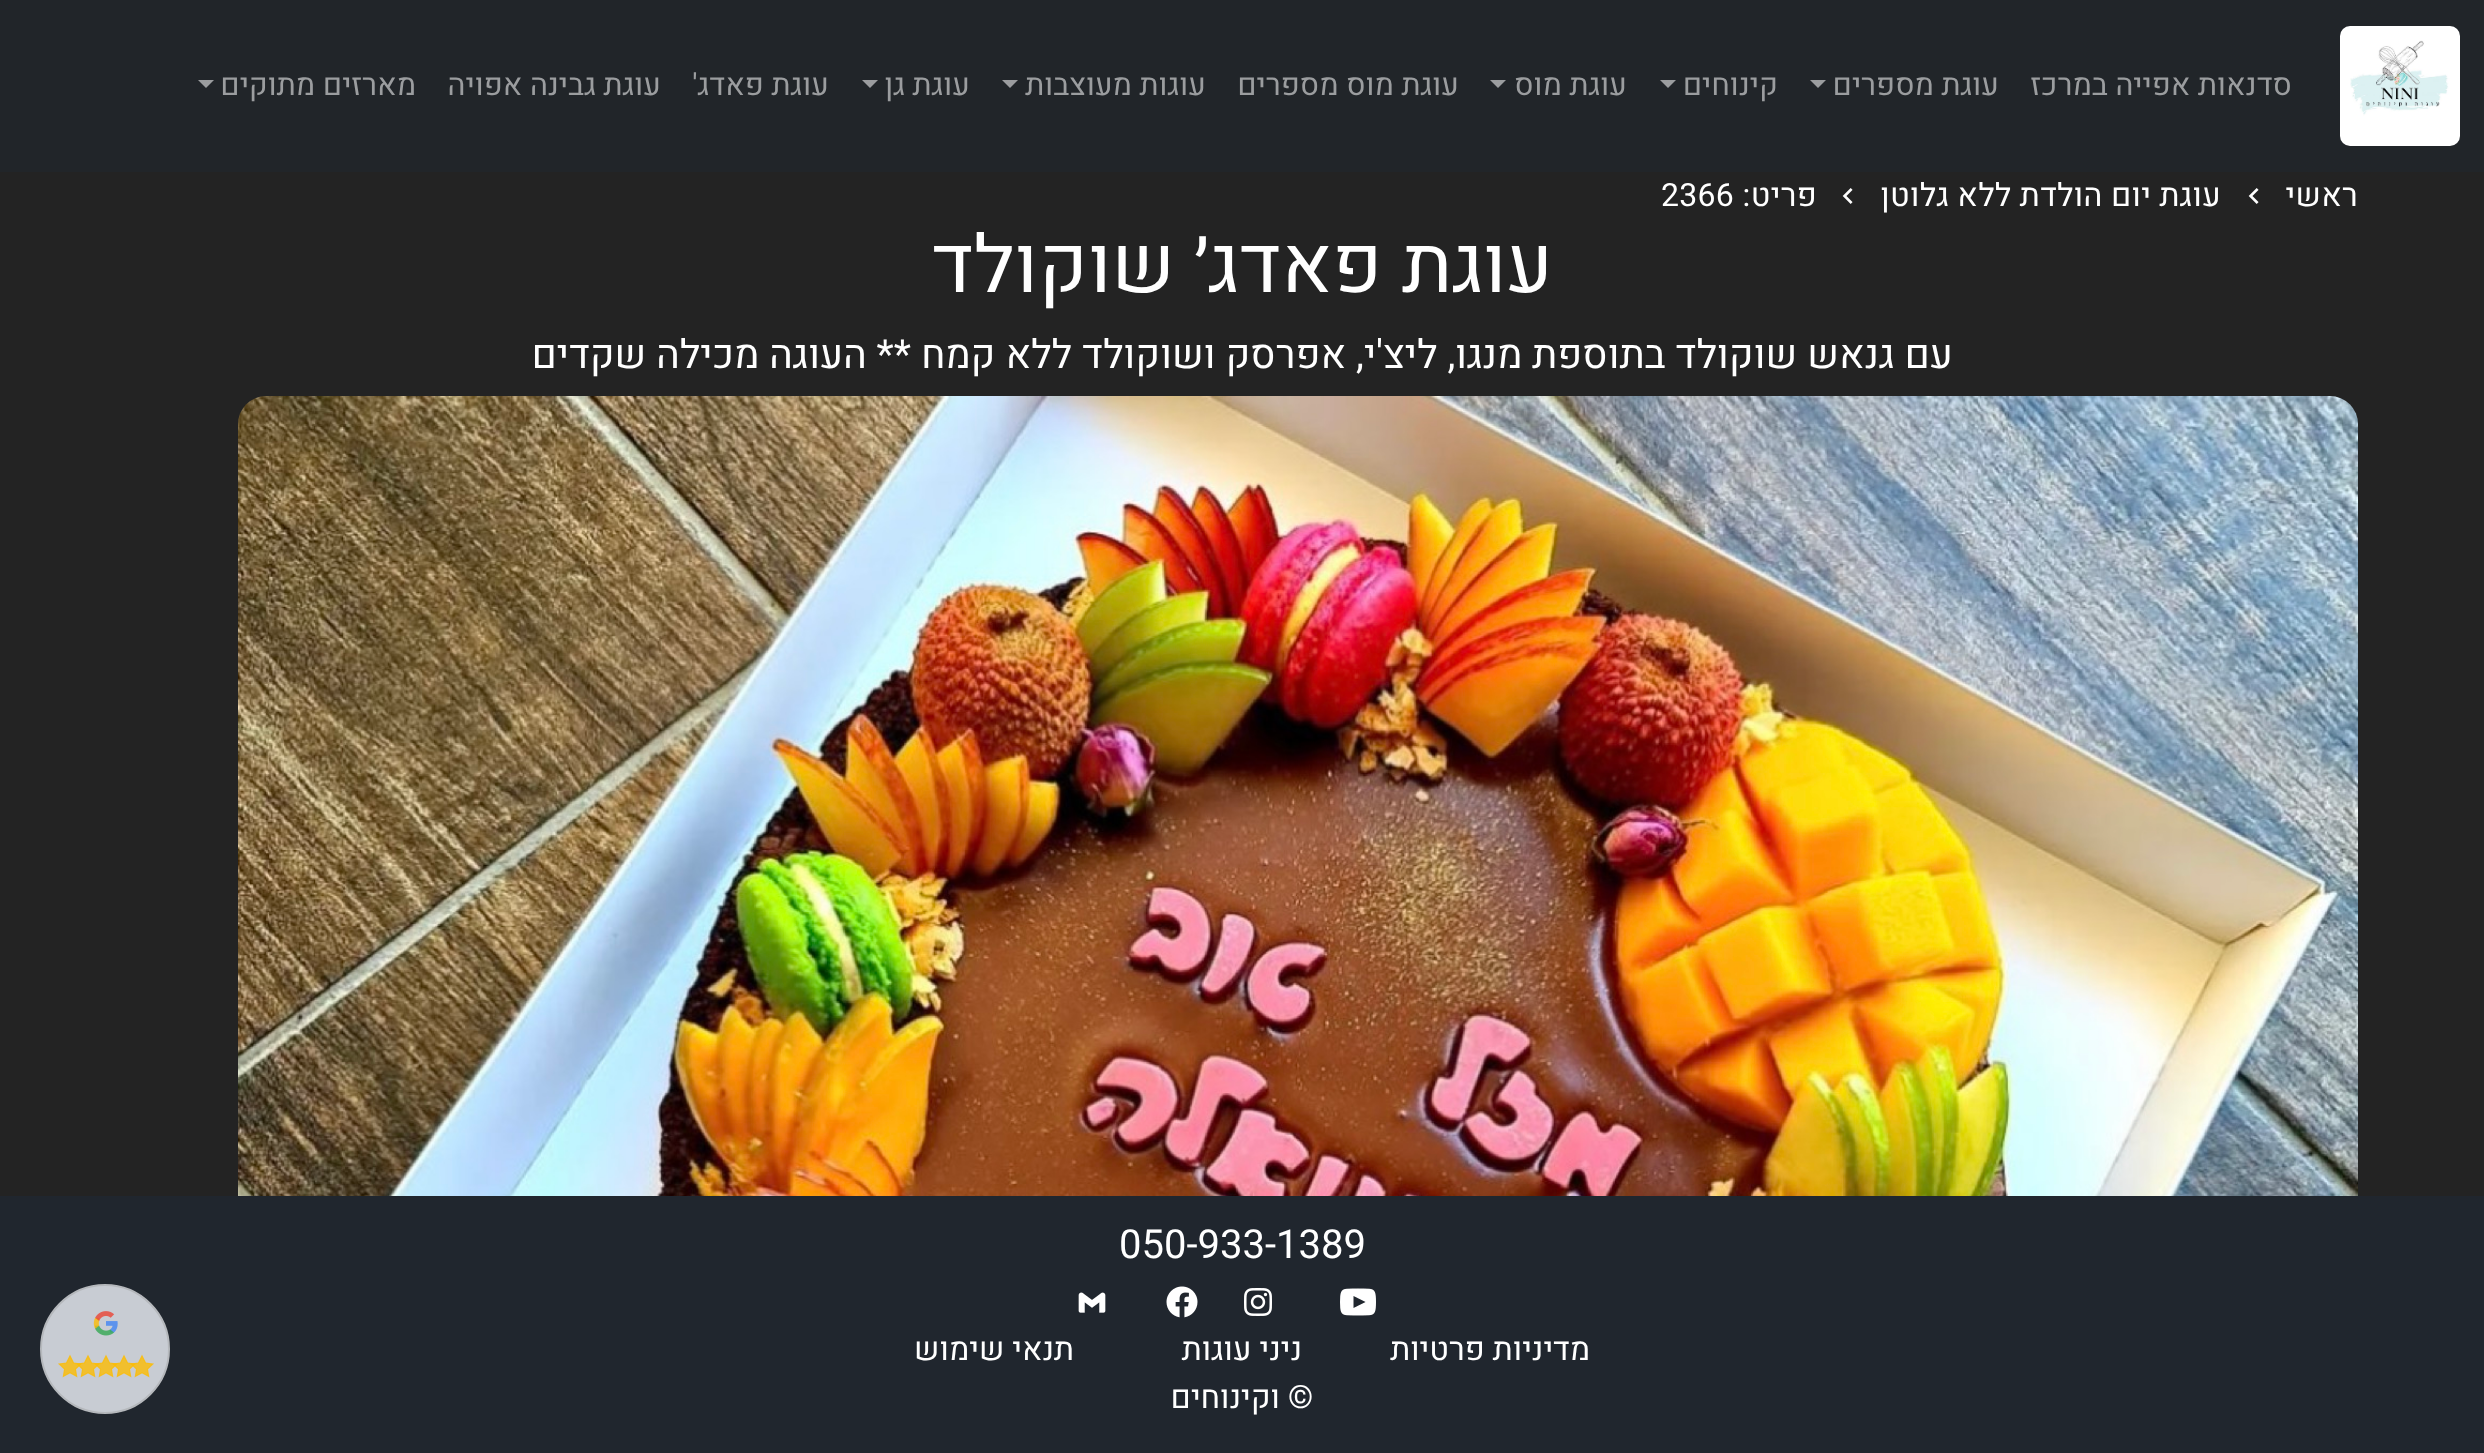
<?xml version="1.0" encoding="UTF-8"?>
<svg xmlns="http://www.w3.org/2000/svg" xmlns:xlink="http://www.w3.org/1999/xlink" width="2484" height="1453">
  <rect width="100%" height="100%" fill="#232323" />
  <rect width="2484" height="172" fill="#212529" />
  <image x="2340" y="26" width="120" height="120" xlink:href="image1.png" />
  <path d="M 1810 80 h 16 l -8 8 z" fill="#9b9d9f" />
  <path d="M 1660 80 h 16 l -8 8 z" fill="#9b9d9f" />
  <path d="M 1490 80 h 16 l -8 8 z" fill="#9b9d9f" />
  <path d="M 1002 80 h 16 l -8 8 z" fill="#9b9d9f" />
  <path d="M 862 80 h 16 l -8 8 z" fill="#9b9d9f" />
  <path d="M 198 80 h 16 l -8 8 z" fill="#9b9d9f" />
  <image x="2248" y="188" width="11" height="16" xlink:href="image2.png" />
  <image x="1842" y="188" width="11" height="16" xlink:href="image2.png" />
  <image x="238" y="396" width="2120" height="800" xlink:href="image3.png" />
  <rect y="1196" width="2484" height="257" fill="#20262e" />
  <image x="1340" y="1288" width="36" height="28" xlink:href="image4.png" />
  <image x="1244" y="1288" width="28" height="28" xlink:href="image5.png" />
  <image x="1166" y="1286" width="32" height="32" xlink:href="image6.png" />
  <image x="1078" y="1292" width="28" height="21" xlink:href="image7.png" />
  <circle cx="105" cy="1349" r="64" fill="#c8ccd3" stroke="#b5b8bc" stroke-width="2" />
  <image x="93" y="1311" width="25" height="25" xlink:href="image8.png" />
  <image x="58" y="1354" width="96" height="24" xlink:href="image9.png" />
  <text x="2292" y="95" style="font-family: Heebo; font-size: 30.5px; direction: rtl; fill: #9b9d9f">סדנאות אפייה במרכז</text>
  <text x="1999" y="95" style="font-family: Heebo; font-size: 30.5px; direction: rtl; fill: #9b9d9f">עוגת מספרים</text>
  <text x="1778" y="95" style="font-family: Heebo; font-size: 30.5px; direction: rtl; fill: #9b9d9f">קינוחים</text>
  <text x="1627" y="95" style="font-family: Heebo; font-size: 30.5px; direction: rtl; fill: #9b9d9f">עוגת מוס</text>
  <text x="1459" y="95" style="font-family: Heebo; font-size: 30.5px; direction: rtl; fill: #9b9d9f">עוגת מוס מספרים</text>
  <text x="1206" y="95" style="font-family: Heebo; font-size: 30.5px; direction: rtl; fill: #9b9d9f">עוגות מעוצבות</text>
  <text x="970" y="95" style="font-family: Heebo; font-size: 30.5px; direction: rtl; fill: #9b9d9f">עוגת גן</text>
  <text x="829" y="95" style="font-family: Heebo; font-size: 30.5px; direction: rtl; fill: #9b9d9f">עוגת פאדג'</text>
  <text x="661" y="95" style="font-family: Heebo; font-size: 30.5px; direction: rtl; fill: #9b9d9f">עוגת גבינה אפויה</text>
  <text x="416" y="95" style="font-family: Heebo; font-size: 30.5px; direction: rtl; fill: #9b9d9f">מארזים מתוקים</text>
  <text x="2358" y="206" style="font-family: Heebo; font-size: 32px; letter-spacing: 0.3px; direction: rtl; fill: #ffffff">ראשי</text>
  <text x="2221" y="206" style="font-family: Heebo; font-size: 32px; letter-spacing: 0.3px; direction: rtl; fill: #ffffff">עוגת יום הולדת ללא גלוטן</text>
  <text x="1817" y="206" style="font-family: Heebo; font-size: 32px; letter-spacing: 0.3px; direction: rtl; fill: #ffffff">פריט:</text>
  <text x="1661" y="206" style="font-family: Heebo; font-size: 32px; letter-spacing: 0.3px; fill: #ffffff">2366</text>
  <text x="1553" y="292" style="font-family: Heebo; font-size: 80px; direction: rtl; fill: #ffffff">עוגת פאדג׳ שוקולד</text>
  <text x="1953" y="368" style="font-family: Heebo; font-size: 40px; direction: rtl; fill: #ffffff">עם גנאש שוקולד בתוספת מנגו, ליצ'י, אפרסק ושוקולד ללא קמח ** העוגה מכילה שקדים</text>
  <text x="1119" y="1258" style="font-family: Heebo; font-size: 40px; fill: #ffffff">050-933-1389</text>
  <text x="1590" y="1360" style="font-family: Heebo; font-size: 32px; direction: rtl; fill: #ffffff">מדיניות פרטיות</text>
  <text x="1302" y="1360" style="font-family: Heebo; font-size: 32px; direction: rtl; fill: #ffffff">ניני עוגות</text>
  <text x="1288" y="1408" style="font-family: Heebo; font-size: 32px; fill: #ffffff">©</text>
  <text x="1280" y="1408" style="font-family: Heebo; font-size: 32px; direction: rtl; fill: #ffffff">וקינוחים</text>
  <text x="1074" y="1360" style="font-family: Heebo; font-size: 32px; direction: rtl; fill: #ffffff">תנאי שימוש</text>
</svg>
